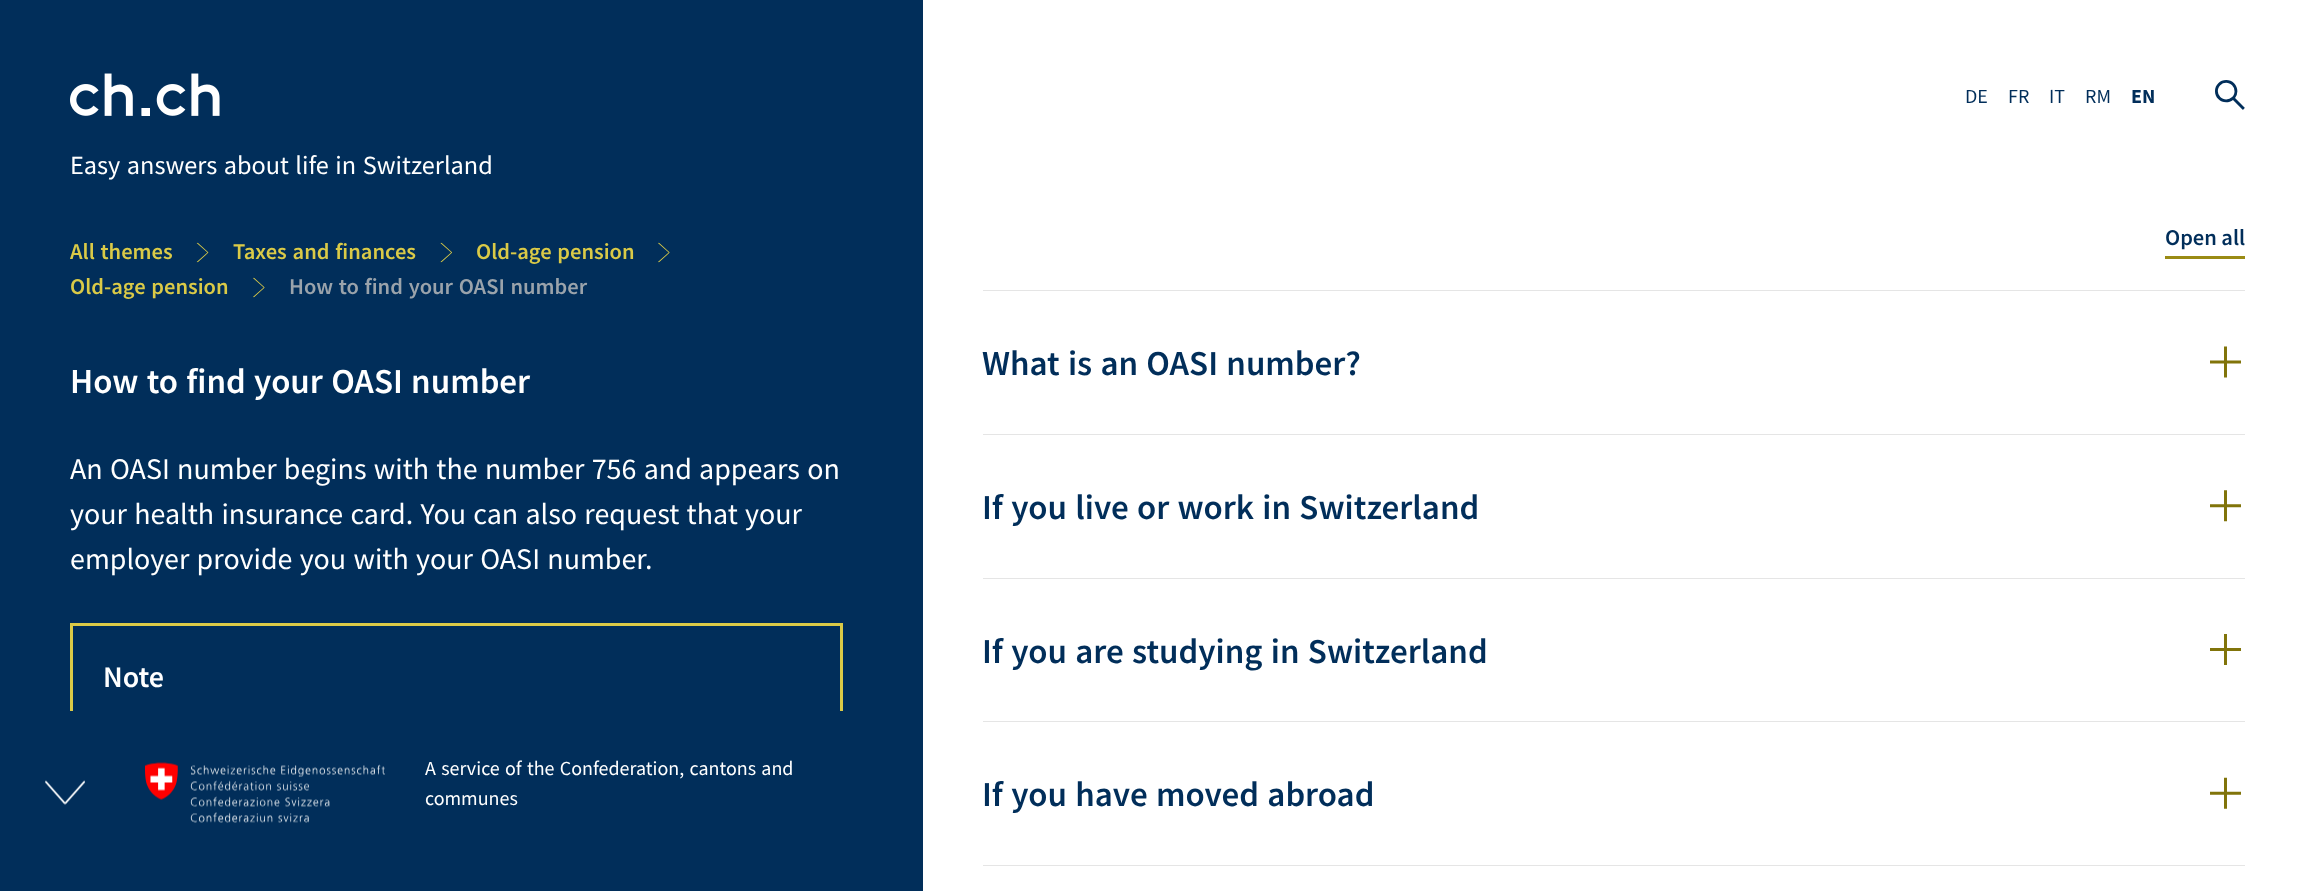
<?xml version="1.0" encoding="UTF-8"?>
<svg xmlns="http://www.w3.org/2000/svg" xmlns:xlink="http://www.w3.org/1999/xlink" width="2304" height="891">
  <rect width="100%" height="100%" fill="#012e5a" />
  <image x="70" y="73" width="150" height="43" xlink:href="image1.png" />
  <image x="196" y="242" width="13" height="21" xlink:href="image2.png" />
  <image x="440" y="242" width="12" height="21" xlink:href="image3.png" />
  <image x="658" y="242" width="12" height="21" xlink:href="image4.png" />
  <image x="253" y="277" width="12" height="21" xlink:href="image5.png" />
  <rect x="71.5" y="624.5" width="770" height="227" fill="none" stroke="#daca47" stroke-width="3" />
  <rect x="923" width="1381" height="891" fill="#ffffff" />
  <image x="2215" y="80" width="30" height="30" xlink:href="image6.png" />
  <rect x="2165" y="256" width="80" height="3" fill="#9a8b14" />
  <rect x="983" y="290" width="1262" height="1" fill="#e5e5e5" />
  <rect x="983" y="434" width="1262" height="1" fill="#e5e5e5" />
  <image x="2210" y="346" width="31" height="32" xlink:href="image7.png" />
  <rect x="983" y="578" width="1262" height="1" fill="#e5e5e5" />
  <image x="2210" y="490" width="31" height="32" xlink:href="image8.png" />
  <rect x="983" y="721" width="1262" height="1" fill="#e5e5e5" />
  <image x="2210" y="634" width="31" height="31" xlink:href="image9.png" />
  <rect x="983" y="865" width="1262" height="1" fill="#e5e5e5" />
  <image x="2210" y="777" width="31" height="32" xlink:href="image10.png" />
  <rect x="70" y="711" width="773" height="142" fill="#012e5a" />
  <image x="45" y="780" width="40" height="25" xlink:href="image11.png" />
  <image x="145" y="762" width="240" height="61" xlink:href="image12.png" />
  <text x="70" y="174" word-spacing="1.25" style="font-family: Source Sans Pro; font-size: 26.25px; fill: #ffffff">Easy answers about life in Switzerland</text>
  <text x="70" y="259" word-spacing="1.25" style="font-family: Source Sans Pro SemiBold; font-size: 22.5px; font-weight: 600; fill: #daca47">All themes</text>
  <text x="233" y="259" word-spacing="1.25" style="font-family: Source Sans Pro SemiBold; font-size: 22.5px; font-weight: 600; fill: #daca47">Taxes and finances</text>
  <text x="476" y="259" word-spacing="1.25" style="font-family: Source Sans Pro SemiBold; font-size: 22.5px; font-weight: 600; fill: #daca47">Old-age pension</text>
  <text x="70" y="294" word-spacing="1.25" style="font-family: Source Sans Pro SemiBold; font-size: 22.5px; font-weight: 600; fill: #daca47">Old-age pension</text>
  <text x="289" y="294" word-spacing="1.25" style="font-family: Source Sans Pro SemiBold; font-size: 22.5px; font-weight: 600; fill: #9aa3ab">How to find your OASI number</text>
  <text x="70" y="393" word-spacing="1.25" style="font-family: Source Sans Pro SemiBold; font-size: 35px; font-weight: 600; fill: #ffffff">How to find your OASI number</text>
  <text x="70" y="479" word-spacing="1.25" style="font-family: Source Sans Pro; font-size: 30px; fill: #ffffff">An OASI number begins with the number 756 and appears on</text>
  <text x="70" y="524" word-spacing="1.25" style="font-family: Source Sans Pro; font-size: 30px; fill: #ffffff">your health insurance card. You can also request that your</text>
  <text x="70" y="569" word-spacing="1.25" style="font-family: Source Sans Pro; font-size: 30px; fill: #ffffff">employer provide you with your OASI number.</text>
  <text x="103" y="687" style="font-family: Source Sans Pro SemiBold; font-size: 30px; font-weight: 600; fill: #ffffff">Note</text>
  <text x="1965" y="103" style="font-family: Source Sans Pro; font-size: 20px; fill: #012e5a">DE</text>
  <text x="2008" y="103" style="font-family: Source Sans Pro; font-size: 20px; fill: #012e5a">FR</text>
  <text x="2049" y="103" style="font-family: Source Sans Pro; font-size: 20px; fill: #012e5a">IT</text>
  <text x="2085" y="103" style="font-family: Source Sans Pro; font-size: 20px; fill: #012e5a">RM</text>
  <text x="2131" y="103" style="font-family: Source Sans Pro; font-size: 20px; font-weight: bold; fill: #012e5a">EN</text>
  <text x="2165" y="245" style="font-family: Source Sans Pro SemiBold; font-size: 22.5px; font-weight: 600; fill: #012e5a">Open all</text>
  <text x="982" y="375" word-spacing="1.25" style="font-family: Source Sans Pro SemiBold; font-size: 35px; font-weight: 600; fill: #012e5a">What is an OASI number?</text>
  <text x="982" y="519" word-spacing="1.25" style="font-family: Source Sans Pro SemiBold; font-size: 35px; font-weight: 600; fill: #012e5a">If you live or work in Switzerland</text>
  <text x="982" y="663" word-spacing="1.25" style="font-family: Source Sans Pro SemiBold; font-size: 35px; font-weight: 600; fill: #012e5a">If you are studying in Switzerland</text>
  <text x="982" y="806" word-spacing="1.25" style="font-family: Source Sans Pro SemiBold; font-size: 35px; font-weight: 600; fill: #012e5a">If you have moved abroad</text>
  <text x="425" y="775" word-spacing="1.25" style="font-family: Source Sans Pro; font-size: 20px; fill: #ffffff">A service of the Confederation, cantons and</text>
  <text x="425" y="805" style="font-family: Source Sans Pro; font-size: 20px; fill: #ffffff">communes</text>
</svg>
